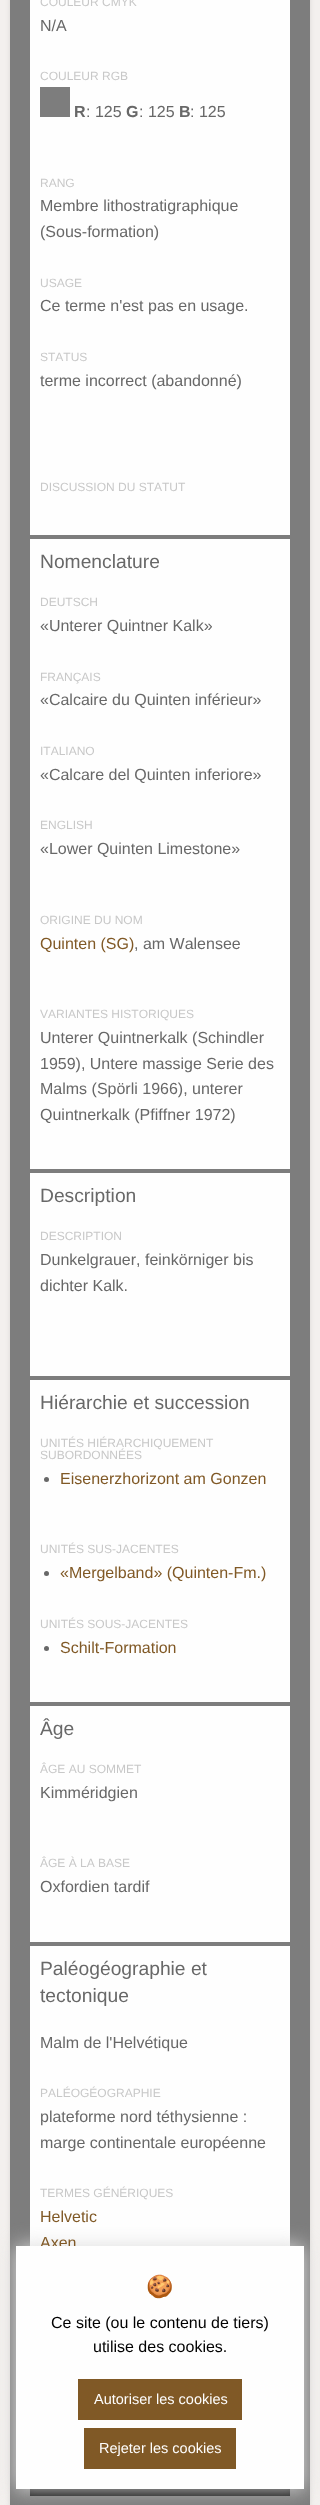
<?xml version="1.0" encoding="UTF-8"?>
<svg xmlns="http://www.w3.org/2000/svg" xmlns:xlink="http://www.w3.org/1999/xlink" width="320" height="2505">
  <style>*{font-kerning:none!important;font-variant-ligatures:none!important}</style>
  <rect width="100%" height="100%" fill="#f3f0ee" />
  <rect x="10" y="-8" width="300" height="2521" fill="#000000" fill-opacity="0.1" filter="blur(2.5px)" />
  <rect x="10" width="300" height="2505" fill="#7d7d7d" />
  <rect x="30" width="260" height="535" fill="#fefefe" />
  <rect x="40" y="87" width="30" height="30" fill="#7d7d7d" />
  <rect x="30" y="539" width="260" height="630" fill="#fefefe" />
  <rect x="30" y="1173" width="260" height="203" fill="#fefefe" />
  <rect x="30" y="1380" width="260" height="322" fill="#fefefe" />
  <circle cx="46.5" cy="1479.5" r="2.5" fill="#686868" />
  <circle cx="46.5" cy="1573.5" r="2.5" fill="#686868" />
  <circle cx="46.5" cy="1648.5" r="2.5" fill="#686868" />
  <rect x="30" y="1706" width="260" height="236" fill="#fefefe" />
  <rect x="30" y="1946" width="260" height="300" fill="#fefefe" />
  <rect x="30" y="2402" width="260" height="94" fill="#131313" fill-opacity="0.1" filter="blur(2.5px)" />
  <rect x="30" y="2489" width="260" height="7" fill="#131313" />
  <rect x="16" y="2246" width="288" height="243" fill="#dddddd" filter="blur(10px)" />
  <text x="40" y="6" style="font-family: Liberation Sans; font-size: 12px; fill: #c8c8c8">COULEUR CMYK</text>
  <text x="40" y="31" style="font-family: Liberation Sans; font-size: 16px; fill: #686868">N/A</text>
  <text x="40" y="80" style="font-family: Liberation Sans; font-size: 12px; fill: #c8c8c8">COULEUR RGB</text>
  <text x="74" y="117" style="font-family: Liberation Sans; font-size: 16px; font-weight: bold; fill: #686868">R</text>
  <text x="86" y="117" style="font-family: Liberation Sans; font-size: 16px; fill: #686868">: 125</text>
  <text x="126" y="117" style="font-family: Liberation Sans; font-size: 16px; font-weight: bold; fill: #686868">G</text>
  <text x="139" y="117" style="font-family: Liberation Sans; font-size: 16px; fill: #686868">: 125</text>
  <text x="179" y="117" style="font-family: Liberation Sans; font-size: 16px; font-weight: bold; fill: #686868">B</text>
  <text x="190" y="117" style="font-family: Liberation Sans; font-size: 16px; fill: #686868">: 125</text>
  <text x="40" y="187" style="font-family: Liberation Sans; font-size: 12px; fill: #c8c8c8">RANG</text>
  <text x="40" y="211" style="font-family: Liberation Sans; font-size: 16px; fill: #686868">Membre lithostratigraphique</text>
  <text x="40" y="237" style="font-family: Liberation Sans; font-size: 16px; fill: #686868">(Sous-formation)</text>
  <text x="40" y="287" style="font-family: Liberation Sans; font-size: 12px; fill: #c8c8c8">USAGE</text>
  <text x="40" y="311" style="font-family: Liberation Sans; font-size: 16px; fill: #686868">Ce terme n'est pas en usage.</text>
  <text x="40" y="361" style="font-family: Liberation Sans; font-size: 12px; fill: #c8c8c8">STATUS</text>
  <text x="40" y="386" style="font-family: Liberation Sans; font-size: 16px; fill: #686868">terme incorrect (abandonné)</text>
  <text x="40" y="491" style="font-family: Liberation Sans; font-size: 12px; fill: #c8c8c8">DISCUSSION DU STATUT</text>
  <text x="40" y="568" style="font-family: Liberation Sans; font-size: 19.25px; fill: #686868">Nomenclature</text>
  <text x="40" y="606" style="font-family: Liberation Sans; font-size: 12px; fill: #c8c8c8">DEUTSCH</text>
  <text x="40" y="631" style="font-family: Liberation Sans; font-size: 16px; fill: #686868">«Unterer Quintner Kalk»</text>
  <text x="40" y="681" style="font-family: Liberation Sans; font-size: 12px; fill: #c8c8c8">FRANÇAIS</text>
  <text x="40" y="705" style="font-family: Liberation Sans; font-size: 16px; fill: #686868">«Calcaire du Quinten inférieur»</text>
  <text x="40" y="755" style="font-family: Liberation Sans; font-size: 12px; fill: #c8c8c8">ITALIANO</text>
  <text x="40" y="780" style="font-family: Liberation Sans; font-size: 16px; fill: #686868">«Calcare del Quinten inferiore»</text>
  <text x="40" y="829" style="font-family: Liberation Sans; font-size: 12px; fill: #c8c8c8">ENGLISH</text>
  <text x="40" y="854" style="font-family: Liberation Sans; font-size: 16px; fill: #686868">«Lower Quinten Limestone»</text>
  <text x="40" y="924" style="font-family: Liberation Sans; font-size: 12px; fill: #c8c8c8">ORIGINE DU NOM</text>
  <text x="40" y="949" style="font-family: Liberation Sans; font-size: 16px; fill: #805926">Quinten (SG)</text>
  <text x="134" y="949" style="font-family: Liberation Sans; font-size: 16px; fill: #686868">, am Walensee</text>
  <text x="40" y="1018" style="font-family: Liberation Sans; font-size: 12px; fill: #c8c8c8">VARIANTES HISTORIQUES</text>
  <text x="40" y="1043" style="font-family: Liberation Sans; font-size: 16px; fill: #686868">Unterer Quintnerkalk (Schindler</text>
  <text x="40" y="1069" style="font-family: Liberation Sans; font-size: 16px; fill: #686868">1959), Untere massige Serie des</text>
  <text x="40" y="1094" style="font-family: Liberation Sans; font-size: 16px; fill: #686868">Malms (Spörli 1966), unterer</text>
  <text x="40" y="1120" style="font-family: Liberation Sans; font-size: 16px; fill: #686868">Quintnerkalk (Pfiffner 1972)</text>
  <text x="40" y="1202" style="font-family: Liberation Sans; font-size: 19.25px; fill: #686868">Description</text>
  <text x="40" y="1240" style="font-family: Liberation Sans; font-size: 12px; fill: #c8c8c8">DESCRIPTION</text>
  <text x="40" y="1265" style="font-family: Liberation Sans; font-size: 16px; fill: #686868">Dunkelgrauer, feinkörniger bis</text>
  <text x="40" y="1291" style="font-family: Liberation Sans; font-size: 16px; fill: #686868">dichter Kalk.</text>
  <text x="40" y="1409" style="font-family: Liberation Sans; font-size: 19.25px; fill: #686868">Hiérarchie et succession</text>
  <text x="40" y="1447" style="font-family: Liberation Sans; font-size: 12px; fill: #c8c8c8">UNITÉS HIÉRARCHIQUEMENT</text>
  <text x="40" y="1459" style="font-family: Liberation Sans; font-size: 12px; fill: #c8c8c8">SUBORDONNÉES</text>
  <text x="60" y="1484" style="font-family: Liberation Sans; font-size: 16px; fill: #805926">Eisenerzhorizont am Gonzen</text>
  <text x="40" y="1553" style="font-family: Liberation Sans; font-size: 12px; fill: #c8c8c8">UNITÉS SUS-JACENTES</text>
  <text x="60" y="1578" style="font-family: Liberation Sans; font-size: 16px; fill: #805926">«Mergelband» (Quinten-Fm.)</text>
  <text x="40" y="1628" style="font-family: Liberation Sans; font-size: 12px; fill: #c8c8c8">UNITÉS SOUS-JACENTES</text>
  <text x="60" y="1653" style="font-family: Liberation Sans; font-size: 16px; fill: #805926">Schilt-Formation</text>
  <text x="40" y="1735" style="font-family: Liberation Sans; font-size: 19.25px; fill: #686868">Âge</text>
  <text x="40" y="1773" style="font-family: Liberation Sans; font-size: 12px; fill: #c8c8c8">ÂGE AU SOMMET</text>
  <text x="40" y="1798" style="font-family: Liberation Sans; font-size: 16px; fill: #686868">Kimméridgien</text>
  <text x="40" y="1867" style="font-family: Liberation Sans; font-size: 12px; fill: #c8c8c8">ÂGE À LA BASE</text>
  <text x="40" y="1892" style="font-family: Liberation Sans; font-size: 16px; fill: #686868">Oxfordien tardif</text>
  <text x="40" y="1975" style="font-family: Liberation Sans; font-size: 19.25px; fill: #686868">Paléogéographie et</text>
  <text x="40" y="2002" style="font-family: Liberation Sans; font-size: 19.25px; fill: #686868">tectonique</text>
  <text x="40" y="2048" style="font-family: Liberation Sans; font-size: 16px; fill: #686868">Malm de l'Helvétique</text>
  <text x="40" y="2097" style="font-family: Liberation Sans; font-size: 12px; fill: #c8c8c8">PALÉOGÉOGRAPHIE</text>
  <text x="40" y="2122" style="font-family: Liberation Sans; font-size: 16px; fill: #686868">plateforme nord téthysienne :</text>
  <text x="40" y="2148" style="font-family: Liberation Sans; font-size: 16px; fill: #686868">marge continentale européenne</text>
  <text x="40" y="2197" style="font-family: Liberation Sans; font-size: 12px; fill: #c8c8c8">TERMES GÉNÉRIQUES</text>
  <text x="40" y="2222" style="font-family: Liberation Sans; font-size: 16px; fill: #805926">Helvetic</text>
  <text x="40" y="2248" style="font-family: Liberation Sans; font-size: 16px; fill: #805926">Axen</text>
  <rect x="16" y="2246" width="288" height="243" fill="#fefefe" />
  <text x="146" y="2294" style="font-family: Noto Color Emoji; font-size: 22px; fill: #686868">🍪</text>
  <text x="51" y="2328" style="font-family: Liberation Sans; font-size: 16px; fill: #000000">Ce site (ou le contenu de tiers)</text>
  <text x="93" y="2352" style="font-family: Liberation Sans; font-size: 16px; fill: #000000">utilise des cookies.</text>
  <rect x="78" y="2379" width="164" height="41" fill="#805926" />
  <text x="94" y="2404" style="font-family: Liberation Sans; font-size: 14.5px; fill: #fefefe">Autoriser les cookies</text>
  <rect x="84" y="2428" width="152" height="41" fill="#805926" />
  <text x="99" y="2453" style="font-family: Liberation Sans; font-size: 14.5px; fill: #fefefe">Rejeter les cookies</text>
</svg>
